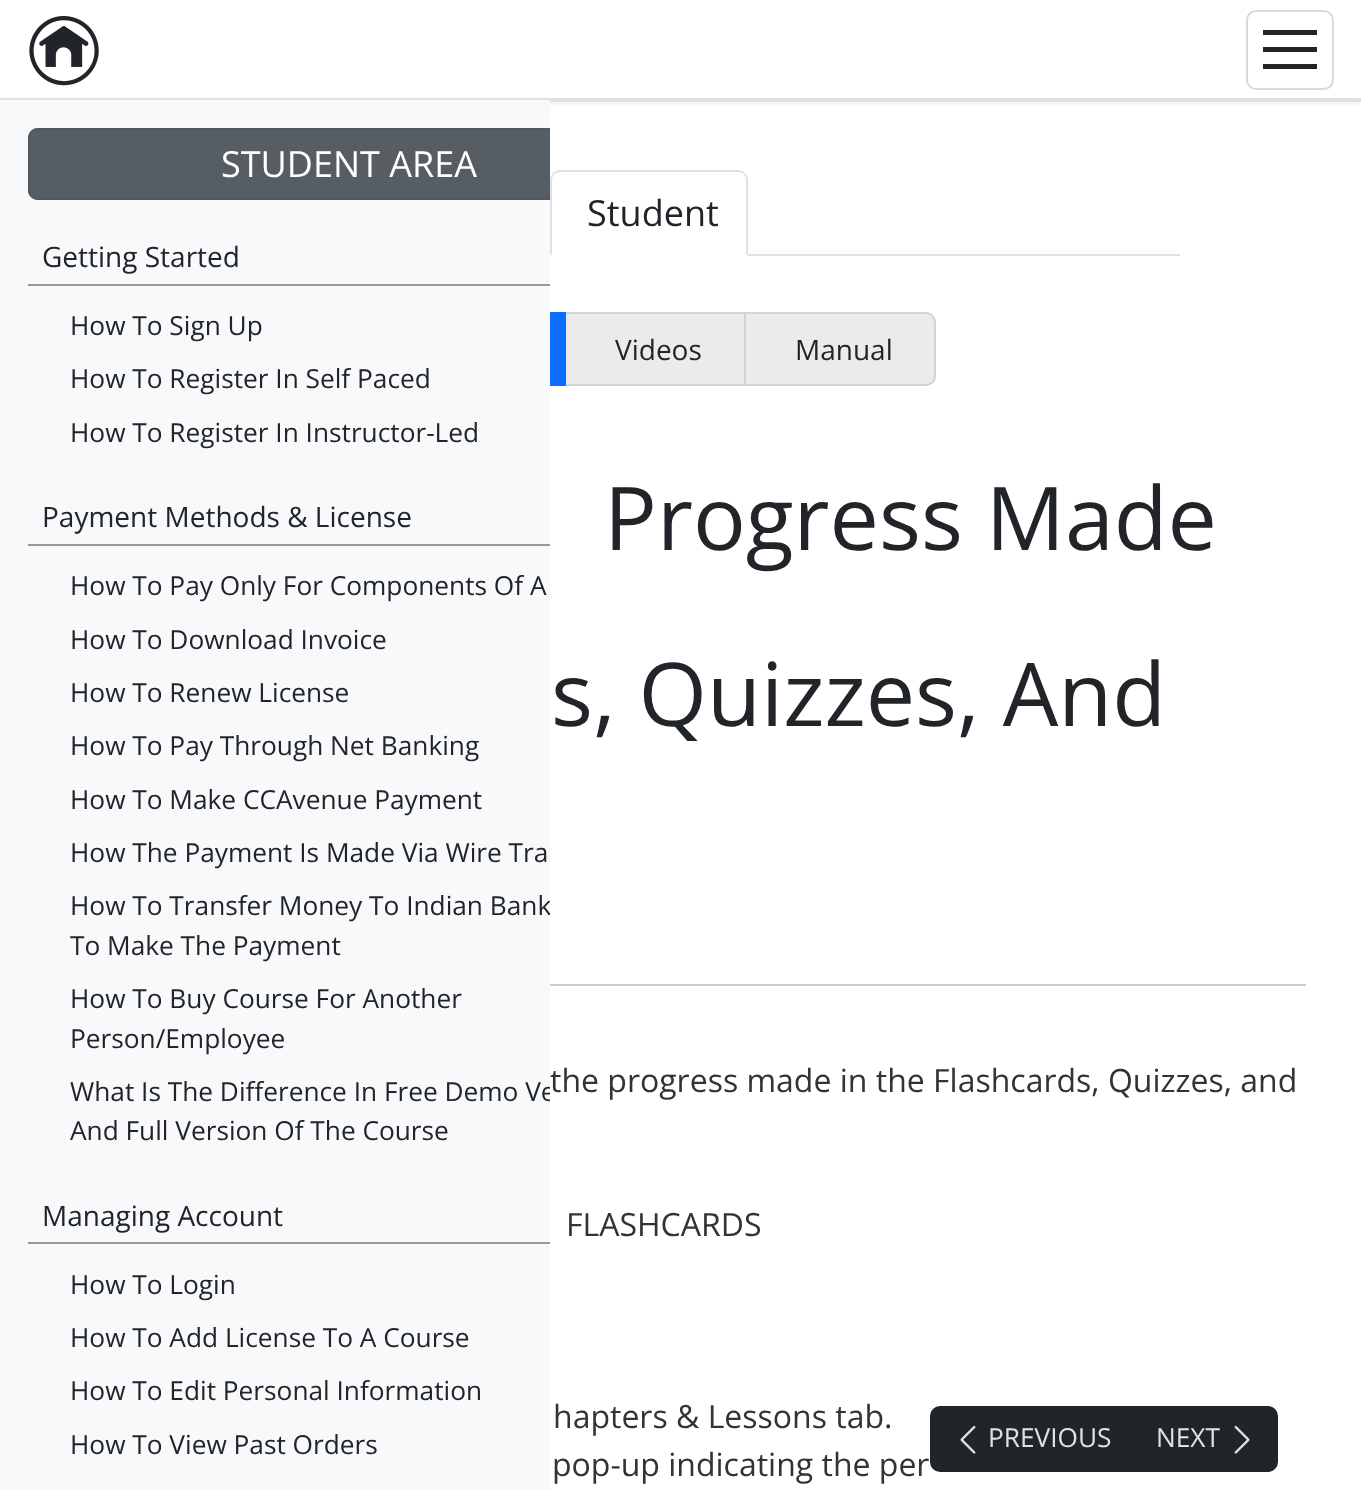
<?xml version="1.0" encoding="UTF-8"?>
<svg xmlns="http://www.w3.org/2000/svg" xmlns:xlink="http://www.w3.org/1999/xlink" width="1361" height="1490">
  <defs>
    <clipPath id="clip1"><rect x="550" y="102" width="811" height="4" /></clipPath>
    <clipPath id="clip2"><rect y="100" width="550" height="1390" /></clipPath>
  </defs>
  <rect width="100%" height="100%" fill="#ffffff" />
  <g clip-path="url(#clip1)">
    <rect y="4" width="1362" height="100" fill="#000000" fill-opacity="0.07" filter="blur(3.5px)" />
  </g>
  <rect y="98" width="1361" height="2" fill="#dee2e6" />
  <image x="29" y="16" width="70" height="70" xlink:href="image1.png" />
  <rect x="1247" y="11" width="86" height="78" rx="9" fill="none" stroke="#d9d9d9" stroke-width="2" />
  <path d="M 1263 69 h 54 v -5 h -54 z m 0 -17 h 54 v -5 h -54 z m 0 -17 h 54 v -5 h -54 z" fill="#212529" />
  <rect x="550" y="100" width="811" height="2" fill="#dee2e6" />
  <rect x="550" y="314" width="14" height="70" fill="#0d6efd" />
  <rect x="565" y="313" width="180" height="72" fill="#ebebeb" stroke="#ced4da" stroke-width="2" />
  <rect x="405" y="313" width="160" height="72" fill="none" stroke="#0d6efd" stroke-width="2" />
  <rect y="100" width="550" height="1390" fill="#f8f9fa" />
  <path d="M 38 128 h 512 v 72 h -512 c -5.5 0 -10 -4.5 -10 -10 v -52 c 0 -5.5 4.5 -10 10 -10 z" fill="#565e64" />
  <rect x="28" y="284" width="522" height="2" fill="#999999" />
  <rect x="28" y="544" width="522" height="2" fill="#999999" />
  <rect x="28" y="1242" width="522" height="2" fill="#999999" />
  <rect x="748" y="254" width="432" height="2" fill="#dee2e6" />
  <path d="M 560 170 c -2 0 -5 1 -7 3 l 1 1 c 2 -1 4 -2 6 -2 h 178 c 2 0 4 1 6 2 l 1 -1 c -2 -2 -5 -3 -7 -3 z" fill="#dee2e6" />
  <path d="M 748 256 v -76 c 0 -2 -1 -5 -3 -7 l -1 1 c 1 2 2 4 2 6 v 74 z" fill="#dee2e6" />
  <path d="M 748 256 l -2 -2 h -194 l -2 2 z" fill="#ffffff" />
  <path d="M 550 256 l 2 -2 v -74 c 0 -2 1 -4 2 -6 l -1 -1 c -2 2 -3 5 -3 7 z" fill="#dee2e6" />
  <path d="M 745 313 h 181 c 5 0 9 4 9 9 v 54 c 0 5 -4 9 -9 9 h -181 z" fill="#ebebeb" stroke="#ced4da" stroke-width="2" />
  <rect x="550" y="984" width="756" height="2" fill="#cccccc" />
  <rect x="930" y="1406" width="348" height="66" rx="10" fill="#212529" />
  <image x="960" y="1425" width="16" height="29" xlink:href="image2.png" />
  <image x="1234" y="1425" width="16" height="29" xlink:href="image3.png" />
  <text x="42" y="267" style="font-family: Open Sans; font-size: 28px; fill: #212529">Getting Started</text>
  <text x="70" y="335" style="font-family: Open Sans; font-size: 26.25px; fill: #212529">How To Sign Up</text>
  <text x="70" y="388" style="font-family: Open Sans; font-size: 26.25px; fill: #212529">How To Register In Self Paced</text>
  <text x="70" y="442" style="font-family: Open Sans; font-size: 26.25px; fill: #212529">How To Register In Instructor-Led</text>
  <text x="42" y="527" style="font-family: Open Sans; font-size: 28px; fill: #212529">Payment Methods &amp; License</text>
  <text x="70" y="595" style="font-family: Open Sans; font-size: 26.25px; fill: #212529">How To Pay Only For Components Of A</text>
  <text x="70" y="649" style="font-family: Open Sans; font-size: 26.25px; fill: #212529">How To Download Invoice</text>
  <text x="70" y="702" style="font-family: Open Sans; font-size: 26.25px; fill: #212529">How To Renew License</text>
  <text x="70" y="755" style="font-family: Open Sans; font-size: 26.25px; fill: #212529">How To Pay Through Net Banking</text>
  <text x="70" y="809" style="font-family: Open Sans; font-size: 26.25px; fill: #212529">How To Make CCAvenue Payment</text>
  <text x="70" y="862" style="font-family: Open Sans; font-size: 26.25px; fill: #212529">How The Payment Is Made Via Wire Tra</text>
  <g clip-path="url(#clip2)">
    <text x="70" y="915" style="font-family: Open Sans; font-size: 26.25px; fill: #212529">How To Transfer Money To Indian Bank</text>
  </g>
  <text x="70" y="955" style="font-family: Open Sans; font-size: 26.25px; fill: #212529">To Make The Payment</text>
  <text x="70" y="1008" style="font-family: Open Sans; font-size: 26.25px; fill: #212529">How To Buy Course For Another</text>
  <text x="70" y="1048" style="font-family: Open Sans; font-size: 26.25px; fill: #212529">Person/Employee</text>
  <g clip-path="url(#clip2)">
    <text x="70" y="1101" style="font-family: Open Sans; font-size: 26.25px; fill: #212529">What Is The Difference In Free Demo Ve</text>
  </g>
  <text x="70" y="1140" style="font-family: Open Sans; font-size: 26.25px; fill: #212529">And Full Version Of The Course</text>
  <text x="42" y="1226" style="font-family: Open Sans; font-size: 28px; fill: #212529">Managing Account</text>
  <text x="70" y="1294" style="font-family: Open Sans; font-size: 26.25px; fill: #212529">How To Login</text>
  <text x="70" y="1347" style="font-family: Open Sans; font-size: 26.25px; fill: #212529">How To Add License To A Course</text>
  <text x="70" y="1400" style="font-family: Open Sans; font-size: 26.25px; fill: #212529">How To Edit Personal Information</text>
  <text x="70" y="1454" style="font-family: Open Sans; font-size: 26.25px; fill: #212529">How To View Past Orders</text>
  <text x="587" y="226" style="font-family: Open Sans; font-size: 36px; fill: #212529">Student</text>
  <g clip-path="url(#clip2)">
    <rect x="29" y="129" width="640" height="70" rx="9" fill="none" stroke="#51585e" stroke-width="2" />
  </g>
  <text x="221" y="177" style="font-family: Open Sans; font-size: 36px; fill: #ffffff">STUDENT AREA</text>
  <text x="615" y="360" style="font-family: Open Sans; font-size: 28px; fill: #212529">Videos</text>
  <text x="795" y="360" style="font-family: Open Sans; font-size: 28px; fill: #212529">Manual</text>
  <text x="604" y="550" style="font-family: Open Sans; font-size: 88px; fill: #212529">Progress Made</text>
  <text x="551" y="726" style="font-family: Open Sans; font-size: 88px; fill: #212529">s, Quizzes, And</text>
  <text x="550" y="1092" style="font-family: Open Sans; font-size: 32px; fill: #333333">the progress made in the Flashcards, Quizzes, and</text>
  <text x="566" y="1236" style="font-family: Open Sans; font-size: 32px; fill: #333333">FLASHCARDS</text>
  <text x="553" y="1428" style="font-family: Open Sans; font-size: 32px; fill: #333333">hapters &amp; Lessons tab.</text>
  <text x="552" y="1476" style="font-family: Open Sans; font-size: 32px; fill: #333333">pop-up indicating the per</text>
  <text x="988" y="1447" style="font-family: Open Sans; font-size: 26.25px; fill: #dee2e6">PREVIOUS</text>
  <text x="1156" y="1447" style="font-family: Open Sans; font-size: 26.25px; fill: #dee2e6">NEXT</text>
</svg>
